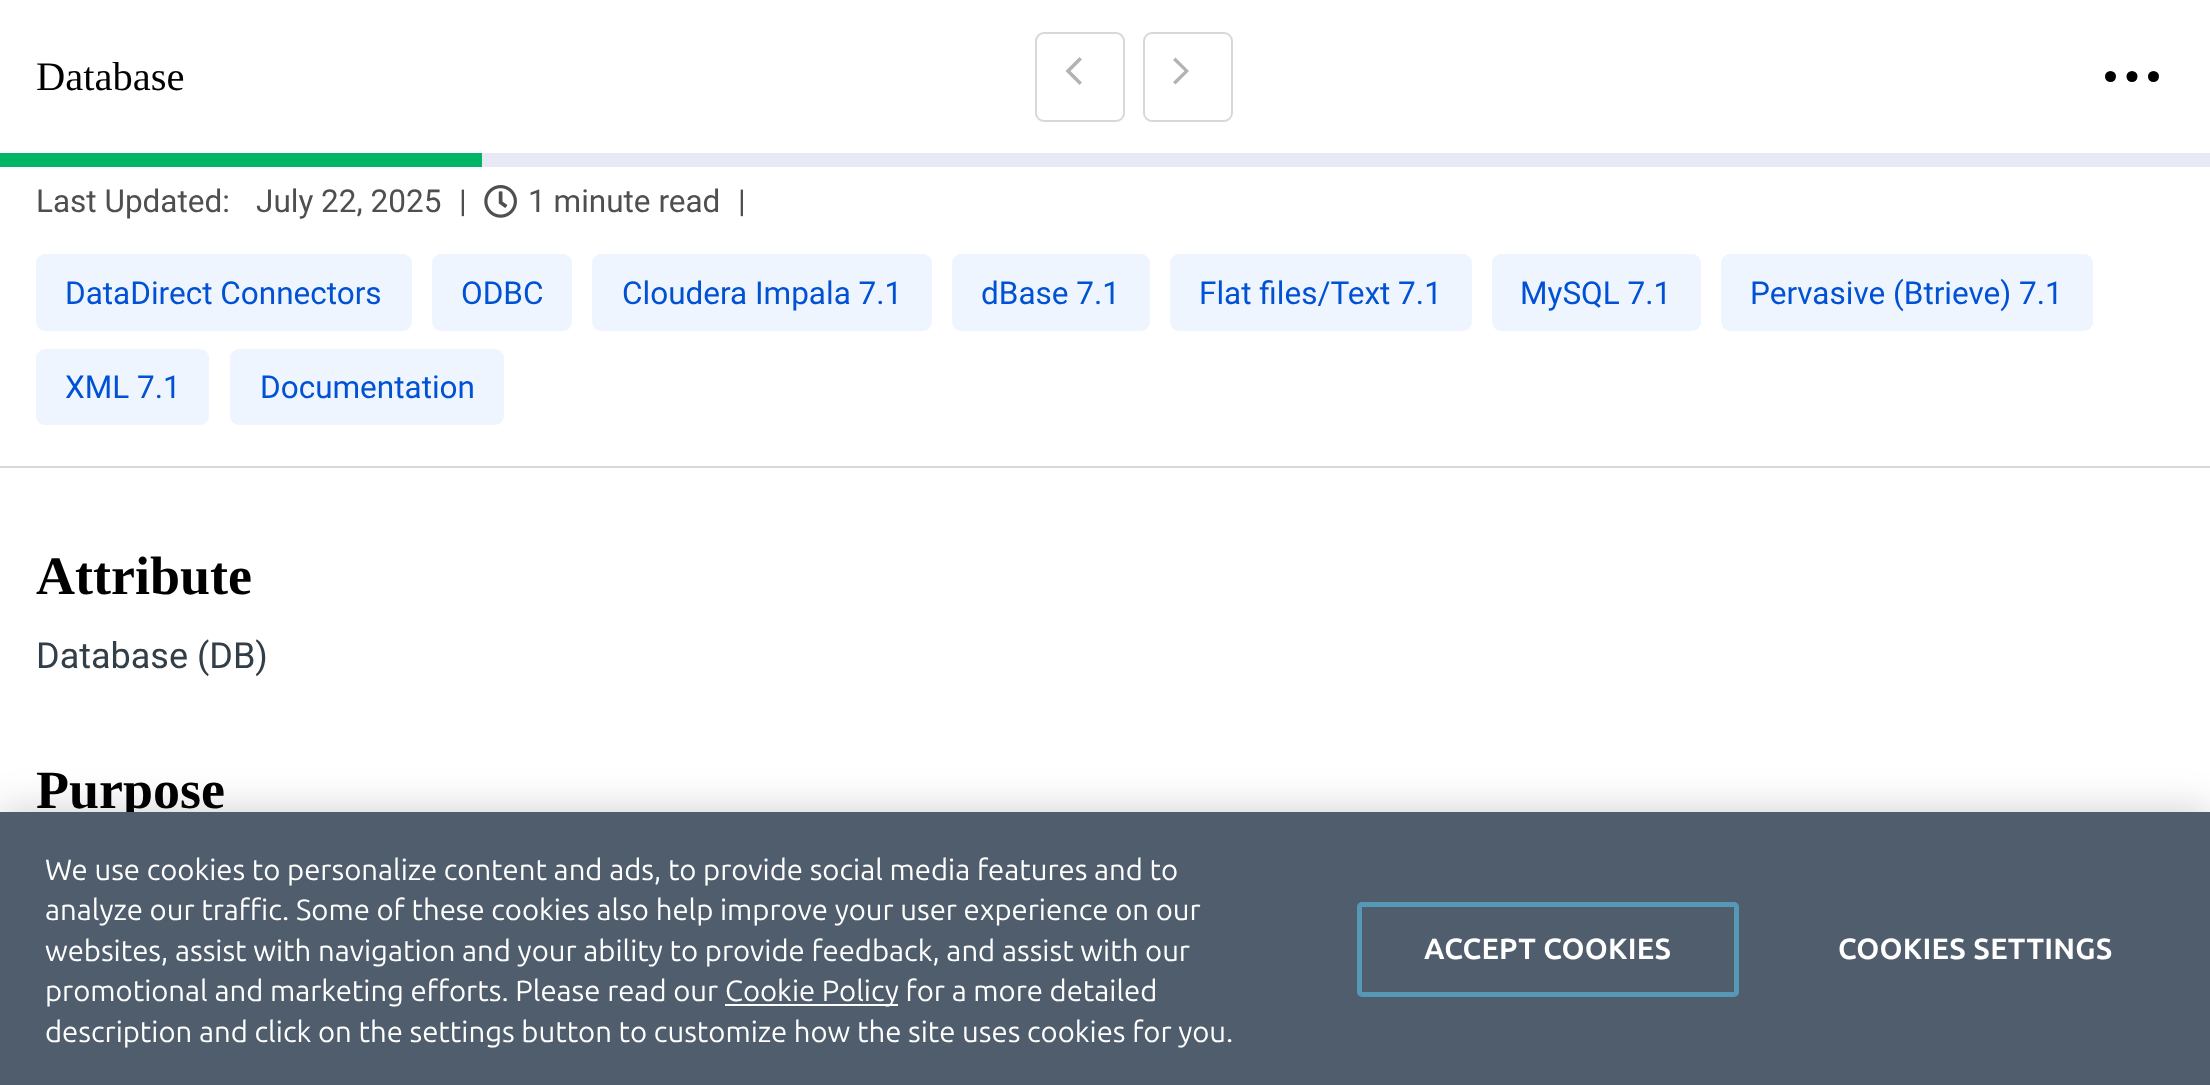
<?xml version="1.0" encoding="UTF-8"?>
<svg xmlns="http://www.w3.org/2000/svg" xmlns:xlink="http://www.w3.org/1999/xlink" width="2210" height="1085">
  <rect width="100%" height="100%" fill="#ffffff" />
  <rect x="1036" y="33" width="88" height="88" rx="8" fill="none" stroke="#d8d8d8" stroke-width="2" />
  <path d="M 1082 59.5 l -2.5 -2.5 l -14 14 l 14 14 l 2.5 -2.5 l -11.5 -11.5 z" fill="#b3b3b3" />
  <rect x="1144" y="33" width="88" height="88" rx="8" fill="none" stroke="#d8d8d8" stroke-width="2" />
  <path d="M 1173 82 l 2.5 2.5 l 13.5 -13.5 l -13.5 -13.5 l -2.5 2.5 l 11.5 11 z" fill="#b3b3b3" />
  <circle cx="2110.5" cy="76.5" r="5.5" fill="#000000" />
  <circle cx="2132" cy="76.5" r="5.5" fill="#000000" />
  <circle cx="2153.5" cy="76.5" r="5.5" fill="#000000" />
  <rect y="153" width="482" height="14" fill="#00b563" />
  <rect x="482" y="153" width="1728" height="14" fill="#e7eaf4" />
  <rect y="466" width="2210" height="2" fill="#d8d8d8" />
  <image x="484" y="185" width="33" height="33" xlink:href="image1.png" />
  <rect x="36" y="254" width="376" height="77" rx="9" fill="#eef5ff" />
  <rect x="432" y="254" width="140" height="77" rx="9" fill="#eef5ff" />
  <rect x="592" y="254" width="340" height="77" rx="9" fill="#eef5ff" />
  <rect x="952" y="254" width="198" height="77" rx="9" fill="#eef5ff" />
  <rect x="1170" y="254" width="302" height="77" rx="9" fill="#eef5ff" />
  <rect x="1492" y="254" width="209" height="77" rx="9" fill="#eef5ff" />
  <rect x="1721" y="254" width="372" height="77" rx="9" fill="#eef5ff" />
  <rect x="36" y="349" width="173" height="76" rx="9" fill="#eef5ff" />
  <rect x="230" y="349" width="274" height="76" rx="9" fill="#eef5ff" />
  <rect y="812" width="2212" height="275" fill="#000000" fill-opacity="0.2" filter="blur(20px)" />
  <text x="36" y="90" style="font-family: Liberation Serif; font-size: 40.5px; fill: #000000">Database</text>
  <text x="36" y="212" style="font-family: Roboto; font-size: 31.5px; fill: #4f4f4f">Last Updated:</text>
  <text x="256" y="212" style="font-family: Roboto; font-size: 31.5px; fill: #4f4f4f">July 22, 2025</text>
  <text x="459" y="212" style="font-family: Roboto; font-size: 31.5px; fill: #4f4f4f">|</text>
  <text x="528" y="212" style="font-family: Roboto; font-size: 31.5px; fill: #4f4f4f">1 minute read</text>
  <text x="738" y="212" style="font-family: Roboto; font-size: 31.5px; fill: #4f4f4f">|</text>
  <text x="65" y="304" style="font-family: Roboto; font-size: 31.5px; fill: #0051d3">DataDirect Connectors</text>
  <text x="461" y="304" style="font-family: Roboto; font-size: 31.5px; fill: #0051d3">ODBC</text>
  <text x="622" y="304" style="font-family: Roboto; font-size: 31.5px; fill: #0051d3">Cloudera Impala 7.1</text>
  <text x="981" y="304" style="font-family: Roboto; font-size: 31.5px; fill: #0051d3">dBase 7.1</text>
  <text x="1199" y="304" style="font-family: Roboto; font-size: 31.5px; fill: #0051d3">Flat files/Text 7.1</text>
  <text x="1520" y="304" style="font-family: Roboto; font-size: 31.5px; fill: #0051d3">MySQL 7.1</text>
  <text x="1750" y="304" style="font-family: Roboto; font-size: 31.5px; fill: #0051d3">Pervasive (Btrieve) 7.1</text>
  <text x="65" y="398" style="font-family: Roboto; font-size: 31.5px; fill: #0051d3">XML 7.1</text>
  <text x="260" y="398" style="font-family: Roboto; font-size: 31.5px; fill: #0051d3">Documentation</text>
  <text x="36" y="594" style="font-family: Liberation Serif; font-size: 54px; font-weight: bold; fill: #000000">Attribute</text>
  <text x="36" y="668" style="font-family: Roboto; font-size: 36px; fill: #323e48">Database (DB)</text>
  <text x="36" y="808" style="font-family: Liberation Serif; font-size: 54px; font-weight: bold; fill: #000000">Purpose</text>
  <rect y="812" width="2210" height="273" fill="#4f5d6c" />
  <text x="45" y="880" style="font-family: Ubuntu; font-size: 29.25px; fill: #ffffff">We use cookies to personalize content and ads, to provide social media features and to</text>
  <text x="45" y="920" style="font-family: Ubuntu; font-size: 29.25px; fill: #ffffff">analyze our traffic. Some of these cookies also help improve your user experience on our</text>
  <text x="45" y="961" style="font-family: Ubuntu; font-size: 29.25px; fill: #ffffff">websites, assist with navigation and your ability to provide feedback, and assist with our</text>
  <text x="45" y="1001" style="font-family: Ubuntu; font-size: 29.25px; fill: #ffffff">promotional and marketing efforts. Please read our</text>
  <rect x="725" y="1004" width="173" height="2" fill="#ffffff" />
  <text x="725" y="1001" style="font-family: Ubuntu; font-size: 29.25px; fill: #ffffff">Cookie Policy for a more detailed</text>
  <text x="45" y="1042" style="font-family: Ubuntu; font-size: 29.25px; fill: #ffffff">description and click on the settings button to customize how the site uses cookies for you.</text>
  <rect x="1359.5" y="904.5" width="377" height="90" rx="2.5" fill="none" stroke="#5699b6" stroke-width="5" />
  <text x="1424" y="959" style="font-family: Ubuntu; font-size: 29.25px; font-weight: bold; letter-spacing: 0.25px; fill: #ffffff">ACCEPT COOKIES</text>
  <text x="1838" y="959" style="font-family: Ubuntu; font-size: 29.25px; font-weight: bold; letter-spacing: 0.25px; fill: #ffffff">COOKIES SETTINGS</text>
</svg>
